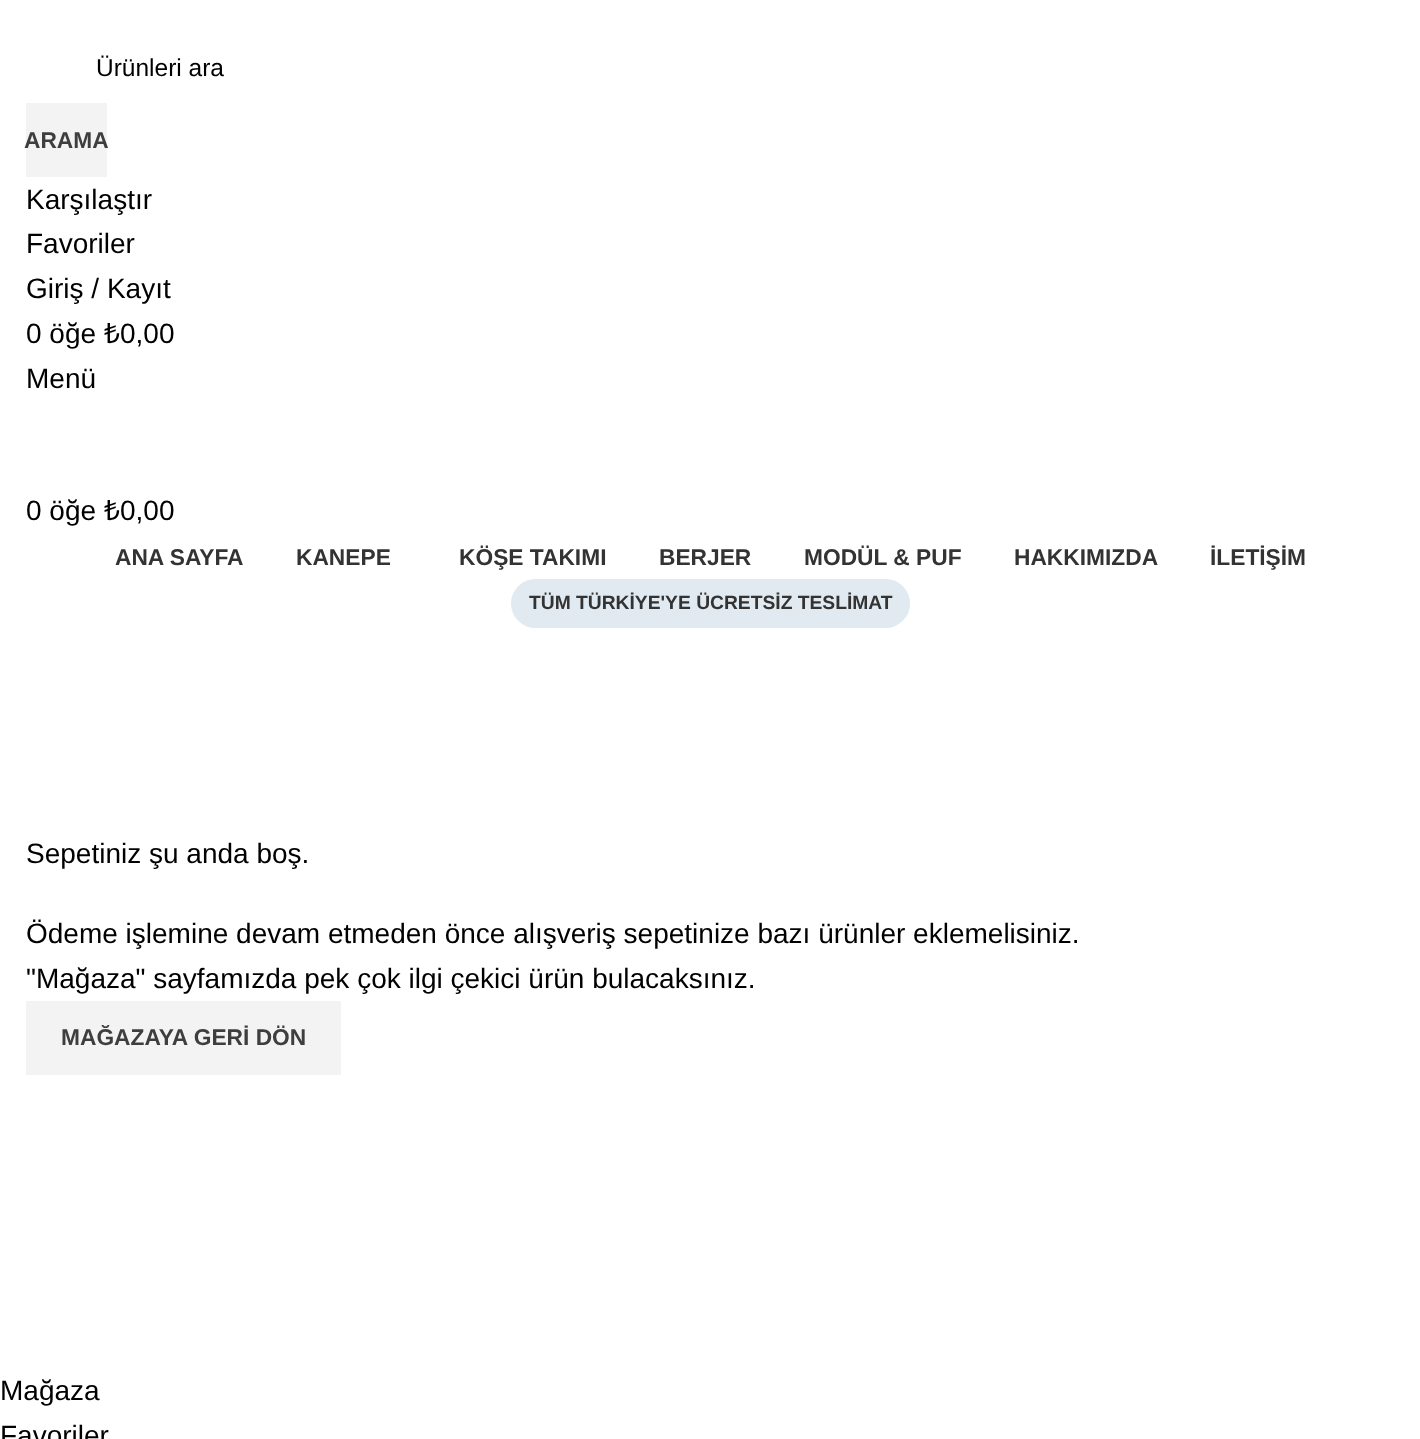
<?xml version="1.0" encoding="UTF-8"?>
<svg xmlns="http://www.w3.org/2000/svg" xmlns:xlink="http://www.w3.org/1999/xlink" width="1420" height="1439">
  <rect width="100%" height="100%" fill="#ffffff" />
  <rect x="26" y="103" width="81" height="74" fill="#f3f3f3" />
  <rect x="511" y="579" width="399" height="49" rx="24.5" fill="#e0eaf0" />
  <rect x="26" y="1001" width="315" height="74" fill="#f3f3f3" />
  <text x="96" y="76" style="font-family: Liberation Sans; font-size: 24.5px; fill: #000000">Ürünleri ara</text>
  <text x="24" y="148" style="font-family: Liberation Sans; font-size: 22.75px; font-weight: bold; fill: #3e3e3e">ARAMA</text>
  <text x="26" y="209" style="font-family: Liberation Sans; font-size: 28px; fill: #000000">Karşılaştır</text>
  <text x="26" y="253" style="font-family: Liberation Sans; font-size: 28px; fill: #000000">Favoriler</text>
  <text x="26" y="298" style="font-family: Liberation Sans; font-size: 28px; fill: #000000">Giriş / Kayıt</text>
  <text x="26" y="343" style="font-family: Liberation Sans; font-size: 28px; fill: #000000">0 öğe</text>
  <text x="104" y="343" style="font-family: Noto Sans; font-size: 28px; fill: #000000">₺</text>
  <text x="120" y="343" style="font-family: Liberation Sans; font-size: 28px; fill: #000000">0,00</text>
  <text x="26" y="388" style="font-family: Liberation Sans; font-size: 28px; fill: #000000">Menü</text>
  <text x="26" y="520" style="font-family: Liberation Sans; font-size: 28px; fill: #000000">0 öğe</text>
  <text x="104" y="520" style="font-family: Noto Sans; font-size: 28px; fill: #000000">₺</text>
  <text x="120" y="520" style="font-family: Liberation Sans; font-size: 28px; fill: #000000">0,00</text>
  <text x="115" y="565" style="font-family: Liberation Sans; font-size: 22.75px; font-weight: bold; fill: #333333">ANA SAYFA</text>
  <text x="296" y="565" style="font-family: Liberation Sans; font-size: 22.75px; font-weight: bold; fill: #333333">KANEPE</text>
  <text x="459" y="565" style="font-family: Liberation Sans; font-size: 22.75px; font-weight: bold; fill: #333333">KÖŞE TAKIMI</text>
  <text x="659" y="565" style="font-family: Liberation Sans; font-size: 22.75px; font-weight: bold; fill: #333333">BERJER</text>
  <text x="804" y="565" style="font-family: Liberation Sans; font-size: 22.75px; font-weight: bold; fill: #333333">MODÜL &amp; PUF</text>
  <text x="1014" y="565" style="font-family: Liberation Sans; font-size: 22.75px; font-weight: bold; fill: #333333">HAKKIMIZDA</text>
  <text x="1210" y="565" style="font-family: Liberation Sans; font-size: 22.75px; font-weight: bold; fill: #333333">İLETİŞİM</text>
  <text x="529" y="609" style="font-family: Liberation Sans; font-size: 19.25px; font-weight: bold; fill: #333333">TÜM TÜRKİYE'YE ÜCRETSİZ TESLİMAT</text>
  <text x="26" y="863" style="font-family: Liberation Sans; font-size: 28px; fill: #000000">Sepetiniz şu anda boş.</text>
  <text x="26" y="943" style="font-family: Liberation Sans; font-size: 28px; fill: #000000">Ödeme işlemine devam etmeden önce alışveriş sepetinize bazı ürünler eklemelisiniz.</text>
  <text x="26" y="988" style="font-family: Liberation Sans; font-size: 28px; fill: #000000">"Mağaza" sayfamızda pek çok ilgi çekici ürün bulacaksınız.</text>
  <text x="61" y="1045" style="font-family: Liberation Sans; font-size: 22.75px; font-weight: bold; fill: #3e3e3e">MAĞAZAYA GERİ DÖN</text>
  <text x="0" y="1400" style="font-family: Liberation Sans; font-size: 28px; fill: #000000">Mağaza</text>
  <text x="0" y="1445" style="font-family: Liberation Sans; font-size: 28px; fill: #000000">Favoriler</text>
</svg>
